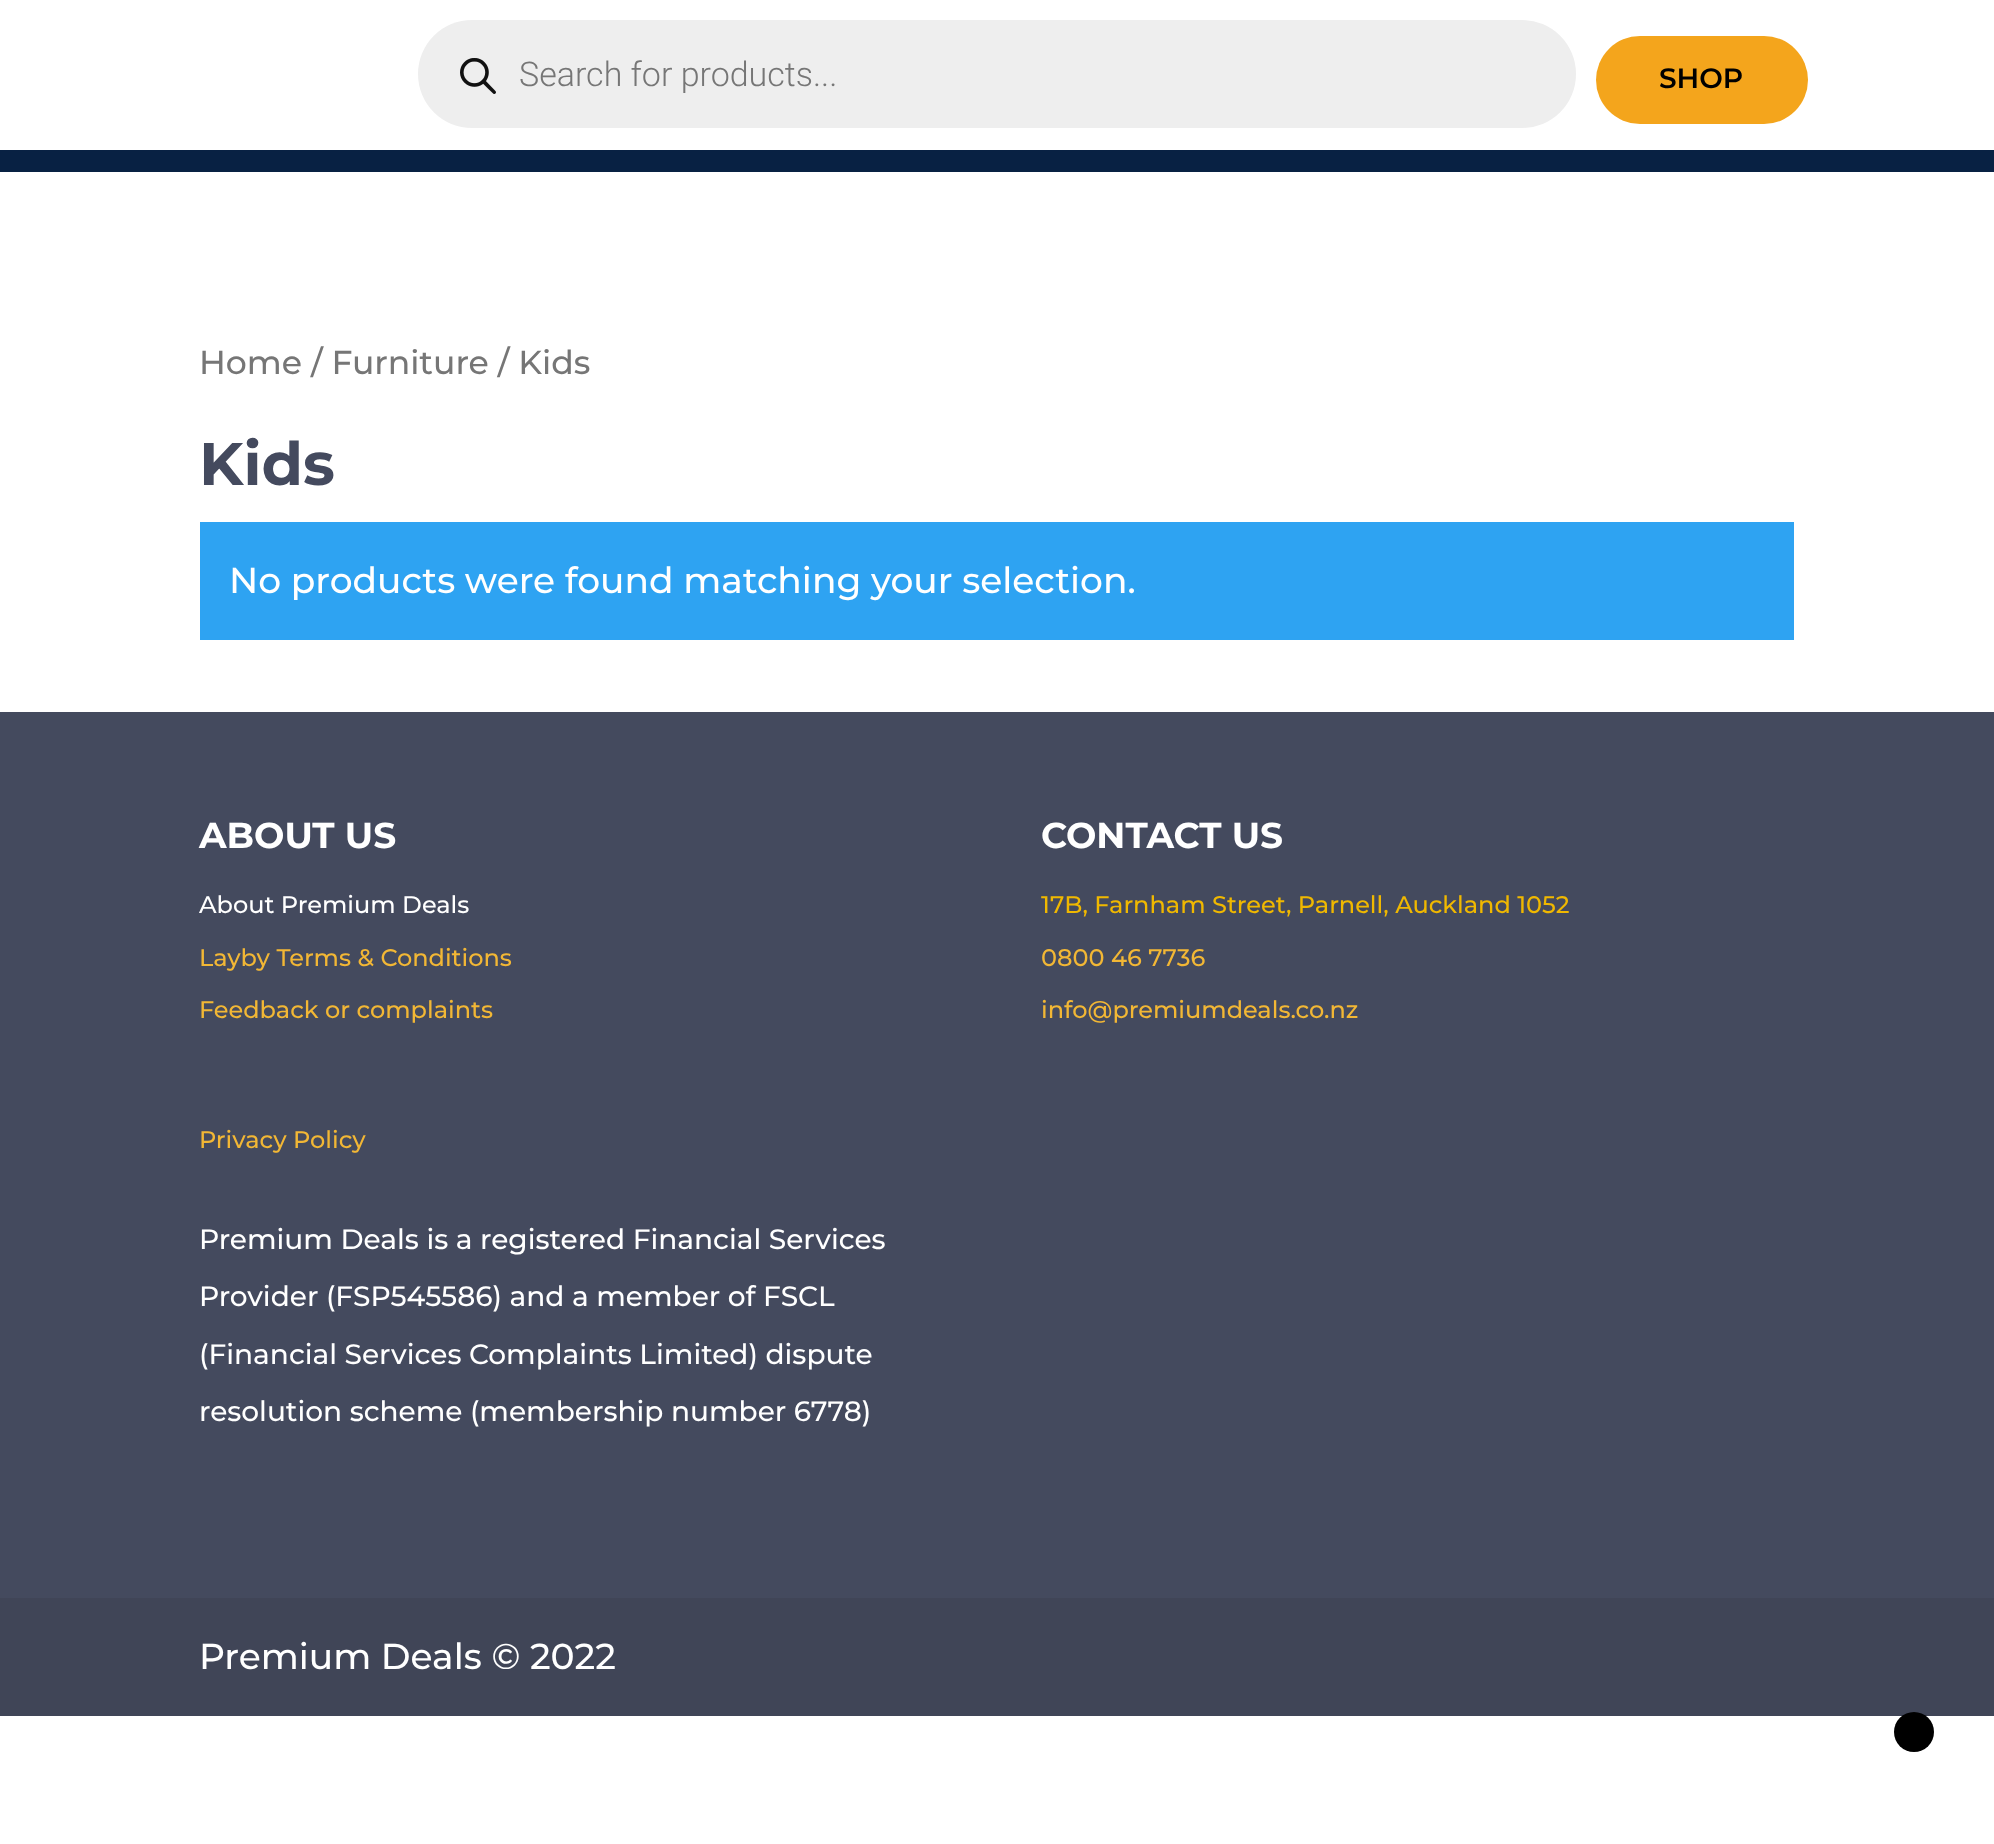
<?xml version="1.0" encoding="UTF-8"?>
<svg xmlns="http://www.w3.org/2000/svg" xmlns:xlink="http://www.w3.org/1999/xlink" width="1994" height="1844">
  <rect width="100%" height="100%" fill="#ffffff" />
  <rect x="418" y="20" width="1158" height="108" rx="54" fill="#eeeeee" />
  <image x="460" y="58" width="36" height="36" xlink:href="image1.png" />
  <rect x="1596" y="36" width="212" height="88" rx="44" fill="#f4a51c" />
  <rect y="150" width="1994" height="22" fill="#082143" />
  <rect x="200" y="522" width="1594" height="118" fill="#2ea3f2" />
  <rect y="712" width="1994" height="886" fill="#444a5e" />
  <rect y="1598" width="1994" height="118" fill="#404557" />
  <circle cx="1914" cy="1732" r="20" fill="#000000" />
  <text x="519" y="86" style="font-family: Roboto; font-size: 34px; font-weight: 300; fill: #767676">Search for products...</text>
  <text x="1659" y="88" style="font-family: 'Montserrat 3'; font-size: 28px; font-weight: 100; fill: #000000">SHOP</text>
  <text x="199" y="374" style="font-family: Montserrat; font-size: 33.1px; font-weight: 100; fill: #767676">Home / Furniture / Kids</text>
  <text x="199" y="485" style="font-family: 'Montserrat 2'; font-size: 60px; font-weight: 100; fill: #444a5e">Kids</text>
  <text x="229" y="593" style="font-family: Montserrat; font-size: 36px; font-weight: 100; fill: #ffffff">No products were found matching your selection.</text>
  <text x="199" y="848" style="font-family: 'Montserrat 2'; font-size: 36px; font-weight: 100; fill: #ffffff">ABOUT US</text>
  <text x="199" y="913" style="font-family: Montserrat; font-size: 24px; font-weight: 100; fill: #ffffff">About Premium Deals</text>
  <text x="199" y="966" style="font-family: Montserrat; font-size: 24px; font-weight: 100; fill: #f2b735">Layby Terms &amp; Conditions</text>
  <text x="199" y="1018" style="font-family: Montserrat; font-size: 24px; font-weight: 100; fill: #f2b735">Feedback or complaints</text>
  <text x="199" y="1148" style="font-family: Montserrat; font-size: 24px; font-weight: 100; fill: #f2b735">Privacy Policy</text>
  <text x="199" y="1249" style="font-family: Montserrat; font-size: 28px; font-weight: 100; fill: #ffffff">Premium Deals is a registered Financial Services</text>
  <text x="199" y="1306" style="font-family: Montserrat; font-size: 28px; font-weight: 100; fill: #ffffff">Provider (FSP545586) and a member of FSCL</text>
  <text x="199" y="1364" style="font-family: Montserrat; font-size: 28px; font-weight: 100; fill: #ffffff">(Financial Services Complaints Limited) dispute</text>
  <text x="199" y="1421" style="font-family: Montserrat; font-size: 28px; font-weight: 100; fill: #ffffff">resolution scheme (membership number 6778)</text>
  <text x="1041" y="848" style="font-family: 'Montserrat 2'; font-size: 36px; font-weight: 100; fill: #ffffff">CONTACT US</text>
  <text x="1041" y="913" style="font-family: Montserrat; font-size: 24px; font-weight: 100; fill: #f0b800">17B, Farnham Street, Parnell, Auckland 1052</text>
  <text x="1041" y="966" style="font-family: Montserrat; font-size: 24px; font-weight: 100; fill: #f2b735">0800 46 7736</text>
  <text x="1041" y="1018" style="font-family: Montserrat; font-size: 24px; font-weight: 100; fill: #f2b735">info@premiumdeals.co.nz</text>
  <text x="199" y="1669" style="font-family: Montserrat; font-size: 36px; font-weight: 100; fill: #ffffff">Premium Deals © 2022</text>
</svg>
